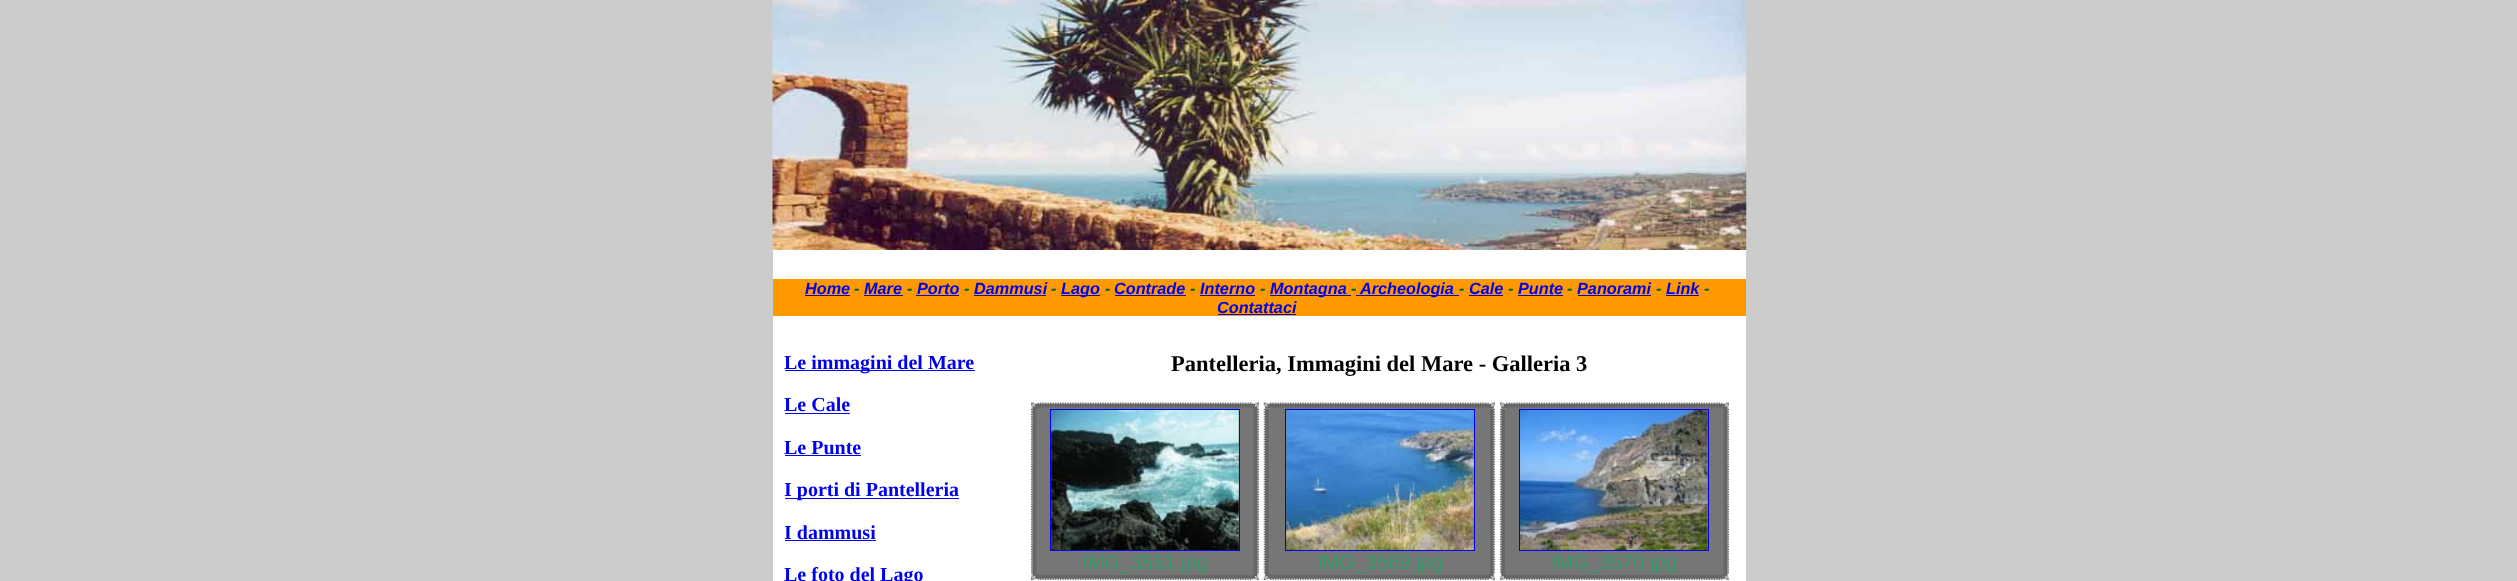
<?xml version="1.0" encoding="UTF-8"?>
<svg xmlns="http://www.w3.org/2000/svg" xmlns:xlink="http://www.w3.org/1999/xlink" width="2517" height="581">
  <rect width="100%" height="100%" fill="#cccccc" />
  <image x="772" y="0" width="975" height="250" xlink:href="image1.png" />
  <rect x="773" y="250" width="973" height="331" fill="#ffffff" />
  <rect x="773" y="279" width="973" height="37" fill="#ff9900" />
  <rect x="805" y="295" width="45" height="1" fill="#0000ee" />
  <rect x="864" y="295" width="39" height="1" fill="#0000ee" />
  <rect x="916" y="295" width="43" height="1" fill="#0000ee" />
  <rect x="974" y="295" width="72" height="1" fill="#0000ee" />
  <rect x="1061" y="295" width="39" height="1" fill="#0000ee" />
  <rect x="1115" y="295" width="71" height="1" fill="#0000ee" />
  <rect x="1200" y="295" width="55" height="1" fill="#0000ee" />
  <rect x="1270" y="295" width="81" height="1" fill="#0000ee" />
  <rect x="1356" y="295" width="103" height="1" fill="#0000ee" />
  <rect x="1469" y="295" width="34" height="1" fill="#0000ee" />
  <rect x="1518" y="295" width="45" height="1" fill="#0000ee" />
  <rect x="1578" y="295" width="73" height="1" fill="#0000ee" />
  <rect x="1666" y="295" width="33" height="1" fill="#0000ee" />
  <rect x="1218" y="314" width="78" height="1" fill="#0000ee" />
  <rect x="785" y="370" width="190" height="1" fill="#0000ee" />
  <rect x="785" y="413" width="65" height="1" fill="#0000ee" />
  <rect x="785" y="455" width="76" height="1" fill="#0000ee" />
  <rect x="785" y="498" width="174" height="1" fill="#0000ee" />
  <rect x="785" y="540" width="91" height="1" fill="#0000ee" />
  <rect x="1031" y="403" width="7" height="6" fill="#666666" />
  <rect x="1038" y="403" width="215" height="6" fill="#767676" />
  <image x="1037" y="402" width="216" height="6" xlink:href="image3.png" />
  <rect x="1031" y="409" width="228" height="165" fill="#767676" />
  <image x="1031" y="408" width="6" height="166" xlink:href="image5.png" />
  <image x="1031" y="402" width="7" height="7" xlink:href="image2.png" />
  <rect x="1253" y="403" width="6" height="6" fill="#666666" />
  <image x="1253" y="408" width="6" height="166" xlink:href="image7.png" />
  <image x="1252" y="402" width="7" height="7" xlink:href="image4.png" />
  <rect x="1050.5" y="409.5" width="189" height="141" fill="none" stroke="#0000ee" />
  <image x="1051" y="410" width="188" height="140" xlink:href="image6.png" />
  <rect x="1031" y="574" width="7" height="6" fill="#666666" />
  <rect x="1038" y="574" width="215" height="6" fill="#767676" />
  <image x="1037" y="575" width="216" height="5" xlink:href="image9.png" />
  <image x="1031" y="573" width="7" height="7" xlink:href="image8.png" />
  <image x="1252" y="573" width="7" height="7" xlink:href="image10.png" />
  <rect x="1264" y="409" width="231" height="165" fill="#767676" />
  <image x="1263" y="408" width="6" height="166" xlink:href="image14.png" />
  <image x="1263" y="402" width="7" height="7" xlink:href="image11.png" />
  <rect x="1270" y="403" width="219" height="6" fill="#767676" />
  <image x="1270" y="402" width="219" height="6" xlink:href="image12.png" />
  <image x="1490" y="408" width="5" height="166" xlink:href="image16.png" />
  <image x="1488" y="402" width="7" height="7" xlink:href="image13.png" />
  <rect x="1285.5" y="409.5" width="189" height="141" fill="none" stroke="#0000ee" />
  <image x="1286" y="410" width="188" height="140" xlink:href="image15.png" />
  <image x="1263" y="573" width="7" height="7" xlink:href="image17.png" />
  <rect x="1270" y="574" width="219" height="6" fill="#767676" />
  <image x="1270" y="575" width="219" height="5" xlink:href="image18.png" />
  <image x="1488" y="573" width="7" height="7" xlink:href="image19.png" />
  <rect x="1506" y="403" width="217" height="6" fill="#767676" />
  <image x="1506" y="402" width="217" height="6" xlink:href="image21.png" />
  <rect x="1500" y="409" width="229" height="165" fill="#767676" />
  <image x="1500" y="408" width="5" height="166" xlink:href="image22.png" />
  <image x="1500" y="402" width="7" height="7" xlink:href="image20.png" />
  <rect x="1723" y="403" width="6" height="6" fill="#666666" />
  <image x="1723" y="408" width="6" height="166" xlink:href="image24.png" />
  <image x="1722" y="402" width="7" height="7" xlink:href="image4.png" />
  <rect x="1519.5" y="409.5" width="189" height="141" fill="none" stroke="#0000ee" />
  <image x="1520" y="410" width="188" height="140" xlink:href="image23.png" />
  <rect x="1506" y="574" width="217" height="6" fill="#767676" />
  <image x="1506" y="575" width="217" height="5" xlink:href="image26.png" />
  <image x="1500" y="573" width="7" height="7" xlink:href="image25.png" />
  <image x="1722" y="573" width="7" height="7" xlink:href="image10.png" />
  <text x="805" y="294" style="font-family: Liberation Sans; font-size: 16.25px; font-weight: bold; font-style: italic; fill: #0000ee">Home</text>
  <text x="854" y="294" style="font-family: Liberation Sans; font-size: 16.25px; font-weight: bold; font-style: italic; fill: #006600">-</text>
  <text x="864" y="294" style="font-family: Liberation Sans; font-size: 16.25px; font-weight: bold; font-style: italic; fill: #0000ee">Mare</text>
  <text x="907" y="294" style="font-family: Liberation Sans; font-size: 16.25px; font-weight: bold; font-style: italic; fill: #006600">-</text>
  <text x="917" y="294" style="font-family: Liberation Sans; font-size: 16.25px; font-weight: bold; font-style: italic; fill: #0000ee">Porto</text>
  <text x="964" y="294" style="font-family: Liberation Sans; font-size: 16.25px; font-weight: bold; font-style: italic; fill: #006600">-</text>
  <text x="974" y="294" style="font-family: Liberation Sans; font-size: 16.25px; font-weight: bold; font-style: italic; fill: #0000ee">Dammusi</text>
  <text x="1051" y="294" style="font-family: Liberation Sans; font-size: 16.25px; font-weight: bold; font-style: italic; fill: #006600">-</text>
  <text x="1061" y="294" style="font-family: Liberation Sans; font-size: 16.25px; font-weight: bold; font-style: italic; fill: #0000ee">Lago</text>
  <text x="1105" y="294" style="font-family: Liberation Sans; font-size: 16.25px; font-weight: bold; font-style: italic; fill: #006600">-</text>
  <text x="1114" y="294" style="font-family: Liberation Sans; font-size: 16.25px; font-weight: bold; font-style: italic; fill: #0000ee">Contrade</text>
  <text x="1190" y="294" style="font-family: Liberation Sans; font-size: 16.25px; font-weight: bold; font-style: italic; fill: #006600">-</text>
  <text x="1200" y="294" style="font-family: Liberation Sans; font-size: 16.25px; font-weight: bold; font-style: italic; fill: #0000ee">Interno</text>
  <text x="1260" y="294" style="font-family: Liberation Sans; font-size: 16.25px; font-weight: bold; font-style: italic; fill: #006600">-</text>
  <text x="1270" y="294" style="font-family: Liberation Sans; font-size: 16.25px; font-weight: bold; font-style: italic; fill: #0000ee">Montagna</text>
  <text x="1351" y="294" style="font-family: Liberation Sans; font-size: 16.25px; font-weight: bold; font-style: italic; fill: #006600">-</text>
  <text x="1360" y="294" style="font-family: Liberation Sans; font-size: 16.25px; font-weight: bold; font-style: italic; fill: #0000ee">Archeologia</text>
  <text x="1459" y="294" style="font-family: Liberation Sans; font-size: 16.25px; font-weight: bold; font-style: italic; fill: #006600">-</text>
  <text x="1469" y="294" style="font-family: Liberation Sans; font-size: 16.25px; font-weight: bold; font-style: italic; fill: #0000ee">Cale</text>
  <text x="1508" y="294" style="font-family: Liberation Sans; font-size: 16.25px; font-weight: bold; font-style: italic; fill: #006600">-</text>
  <text x="1518" y="294" style="font-family: Liberation Sans; font-size: 16.25px; font-weight: bold; font-style: italic; fill: #0000ee">Punte</text>
  <text x="1567" y="294" style="font-family: Liberation Sans; font-size: 16.25px; font-weight: bold; font-style: italic; fill: #006600">-</text>
  <text x="1577" y="294" style="font-family: Liberation Sans; font-size: 16.25px; font-weight: bold; font-style: italic; fill: #0000ee">Panorami</text>
  <text x="1656" y="294" style="font-family: Liberation Sans; font-size: 16.25px; font-weight: bold; font-style: italic; fill: #006600">-</text>
  <text x="1666" y="294" style="font-family: Liberation Sans; font-size: 16.25px; font-weight: bold; font-style: italic; fill: #0000ee">Link</text>
  <text x="1704" y="294" style="font-family: Liberation Sans; font-size: 16.25px; font-weight: bold; font-style: italic; fill: #006600">-</text>
  <text x="1217" y="313" style="font-family: Liberation Sans; font-size: 16.25px; font-weight: bold; font-style: italic; fill: #0000ee">Contattaci</text>
  <text x="784" y="369" style="font-family: Liberation Serif; font-size: 20px; font-weight: bold; fill: #0000ee">Le immagini del Mare</text>
  <text x="784" y="411" style="font-family: Liberation Serif; font-size: 20px; font-weight: bold; fill: #0000ee">Le Cale</text>
  <text x="784" y="454" style="font-family: Liberation Serif; font-size: 20px; font-weight: bold; fill: #0000ee">Le Punte</text>
  <text x="784" y="496" style="font-family: Liberation Serif; font-size: 20px; font-weight: bold; fill: #0000ee">I porti di Pantelleria</text>
  <text x="784" y="539" style="font-family: Liberation Serif; font-size: 20px; font-weight: bold; fill: #0000ee">I dammusi</text>
  <text x="784" y="581" style="font-family: Liberation Serif; font-size: 20px; font-weight: bold; fill: #0000ee">Le foto del Lago</text>
  <text x="1171" y="371" style="font-family: Liberation Serif; font-size: 22.5px; font-weight: bold; fill: #000000">Pantelleria, Immagini del Mare - Galleria 3</text>
  <text x="1082" y="569" style="font-family: Liberation Sans; font-size: 20px; fill: #339966">IMG_3551.jpg</text>
  <text x="1317" y="569" style="font-family: Liberation Sans; font-size: 20px; fill: #339966">IMG_3569.jpg</text>
  <text x="1551" y="569" style="font-family: Liberation Sans; font-size: 20px; fill: #339966">IMG_3570.jpg</text>
</svg>
